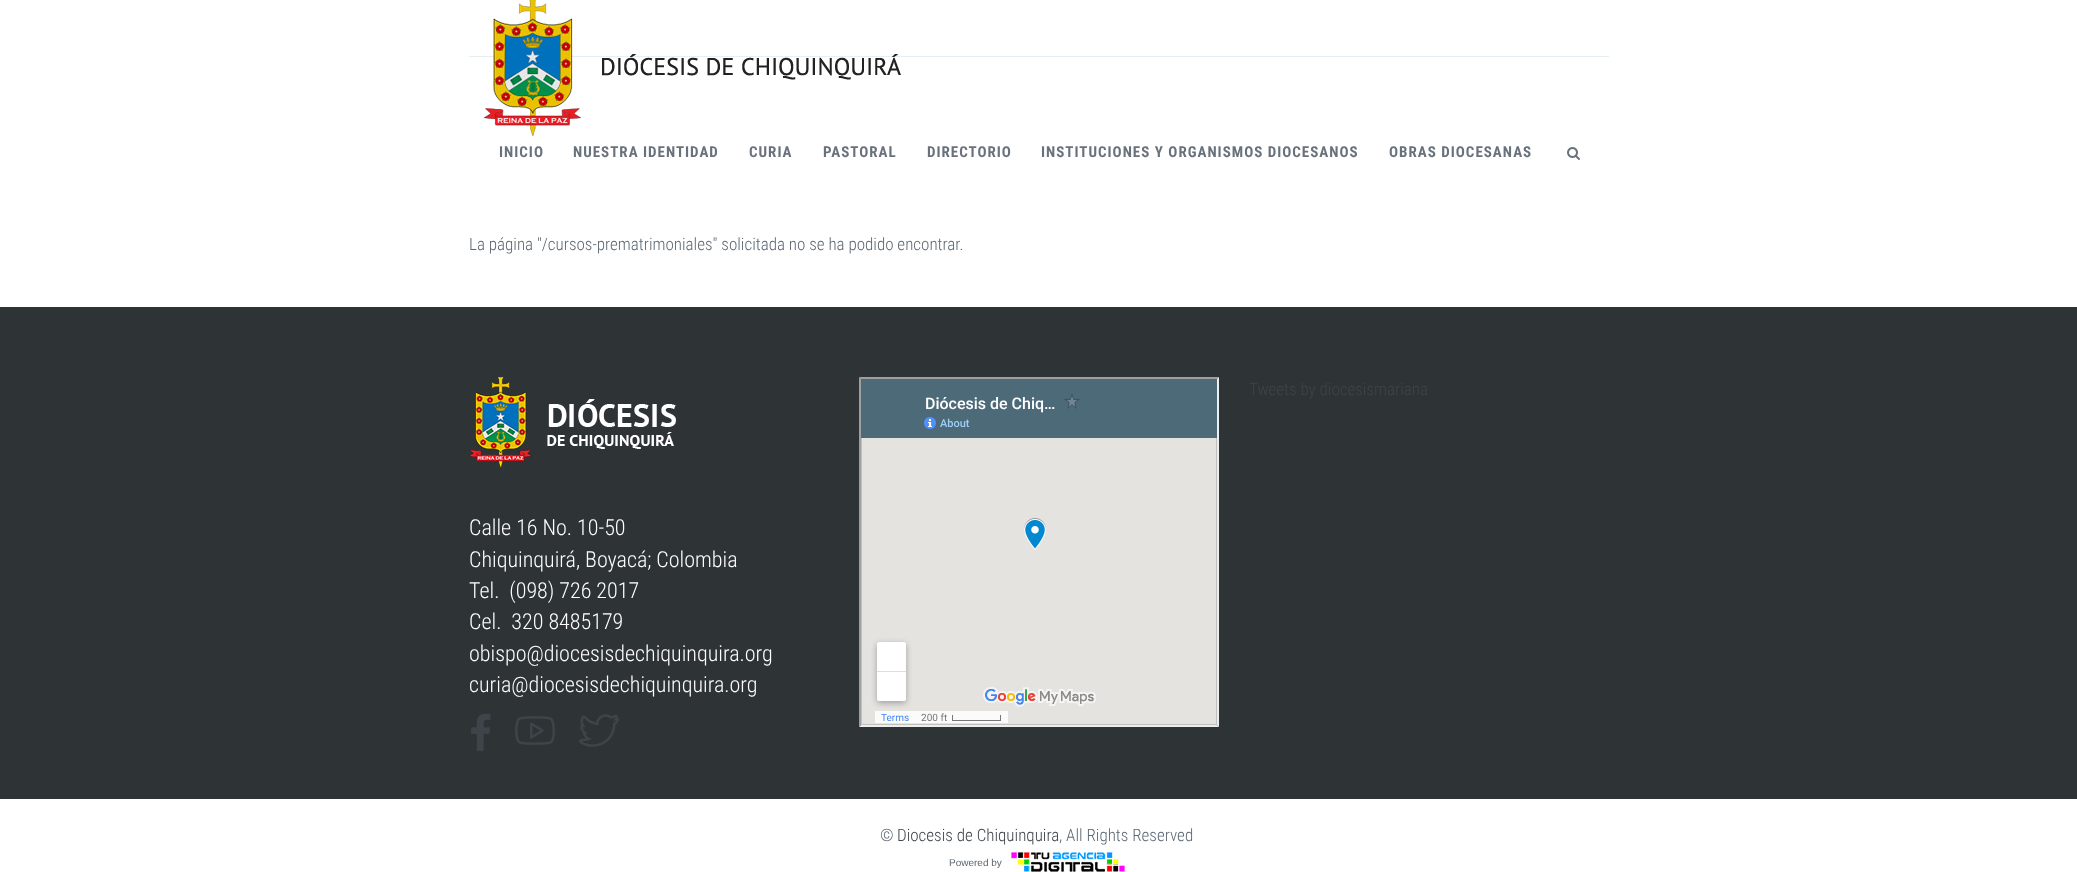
<?xml version="1.0" encoding="UTF-8"?>
<svg xmlns="http://www.w3.org/2000/svg" xmlns:xlink="http://www.w3.org/1999/xlink" width="2077" height="872">
  <rect width="100%" height="100%" fill="#ffffff" />
  <rect x="469" y="56" width="1140" height="1" fill="#e6eff3" />
  <image x="484" y="0" width="417" height="136" xlink:href="image1.png" />
  <image x="1567" y="147" width="13" height="13" xlink:href="image2.png" />
  <rect y="307" width="2077" height="492" fill="#2e3336" />
  <path d="M 859 377 h 360 l -2 2 h -356 z" fill="#9f9f9f" />
  <path d="M 1219 377 v 350 l -2 -2 v -346 z" fill="#eeeeee" />
  <path d="M 1219 727 h -360 l 2 -2 h 356 z" fill="#eeeeee" />
  <path d="M 859 727 v -350 l 2 2 v 346 z" fill="#9f9f9f" />
  <image x="861" y="379" width="356" height="346" xlink:href="image3.png" />
  <image x="469" y="377" width="207" height="91" xlink:href="image4.png" />
  <image x="471" y="713" width="20" height="38" xlink:href="image5.png" />
  <image x="515" y="716" width="40" height="29" xlink:href="image6.png" />
  <image x="579" y="714" width="40" height="33" xlink:href="image7.png" />
  <image x="1011" y="852" width="114" height="20" xlink:href="image8.png" />
  <text x="499" y="157" style="font-family: Roboto Condensed; font-size: 15px; font-weight: bold; letter-spacing: 1px; fill: #69727c">INICIO</text>
  <text x="573" y="157" style="font-family: Roboto Condensed; font-size: 15px; font-weight: bold; letter-spacing: 1px; fill: #69727c">NUESTRA IDENTIDAD</text>
  <text x="749" y="157" style="font-family: Roboto Condensed; font-size: 15px; font-weight: bold; letter-spacing: 1px; fill: #69727c">CURIA</text>
  <text x="823" y="157" style="font-family: Roboto Condensed; font-size: 15px; font-weight: bold; letter-spacing: 1px; fill: #69727c">PASTORAL</text>
  <text x="927" y="157" style="font-family: Roboto Condensed; font-size: 15px; font-weight: bold; letter-spacing: 1px; fill: #69727c">DIRECTORIO</text>
  <text x="1041" y="157" style="font-family: Roboto Condensed; font-size: 15px; font-weight: bold; letter-spacing: 1px; fill: #69727c">INSTITUCIONES Y ORGANISMOS DIOCESANOS</text>
  <text x="1389" y="157" style="font-family: Roboto Condensed; font-size: 15px; font-weight: bold; letter-spacing: 1px; fill: #69727c">OBRAS DIOCESANAS</text>
  <text x="469" y="250" style="font-family: Roboto Condensed; font-size: 17px; font-weight: 300; fill: #5c6873">La página "/cursos-prematrimoniales" solicitada no se ha podido encontrar.</text>
  <text x="1249" y="395" style="font-family: Roboto Condensed; font-size: 17px; font-weight: 300; fill: #3f444a">Tweets by diocesismariana</text>
  <text x="469" y="535" style="font-family: Roboto Condensed; font-size: 22px; font-weight: 300; fill: #ffffff">Calle 16 No. 10-50</text>
  <text x="469" y="567" style="font-family: Roboto Condensed; font-size: 22px; font-weight: 300; fill: #ffffff">Chiquinquirá, Boyacá; Colombia</text>
  <text x="469" y="598" style="font-family: Roboto Condensed; font-size: 22px; font-weight: 300; fill: #ffffff" xml:space="preserve">Tel.  (098) 726 2017</text>
  <text x="469" y="629" style="font-family: Roboto Condensed; font-size: 22px; font-weight: 300; fill: #ffffff" xml:space="preserve">Cel.  320 8485179</text>
  <text x="469" y="661" style="font-family: Roboto Condensed; font-size: 22px; font-weight: 300; fill: #ffffff">obispo@diocesisdechiquinquira.org</text>
  <text x="469" y="692" style="font-family: Roboto Condensed; font-size: 22px; font-weight: 300; fill: #ffffff">curia@diocesisdechiquinquira.org</text>
  <text x="880" y="841" style="font-family: Roboto Condensed; font-size: 17px; font-weight: 300; fill: #5c6873">©</text>
  <text x="897" y="841" style="font-family: Roboto Condensed; font-size: 17px; font-weight: 300; fill: #3f444a">Diocesis de Chiquinquira</text>
  <text x="1059" y="841" style="font-family: Roboto Condensed; font-size: 17px; font-weight: 300; fill: #5c6873">, All Rights Reserved</text>
  <text x="949" y="866" style="font-family: Liberation Sans; font-size: 10px; fill: #5c6873">Powered by</text>
</svg>
